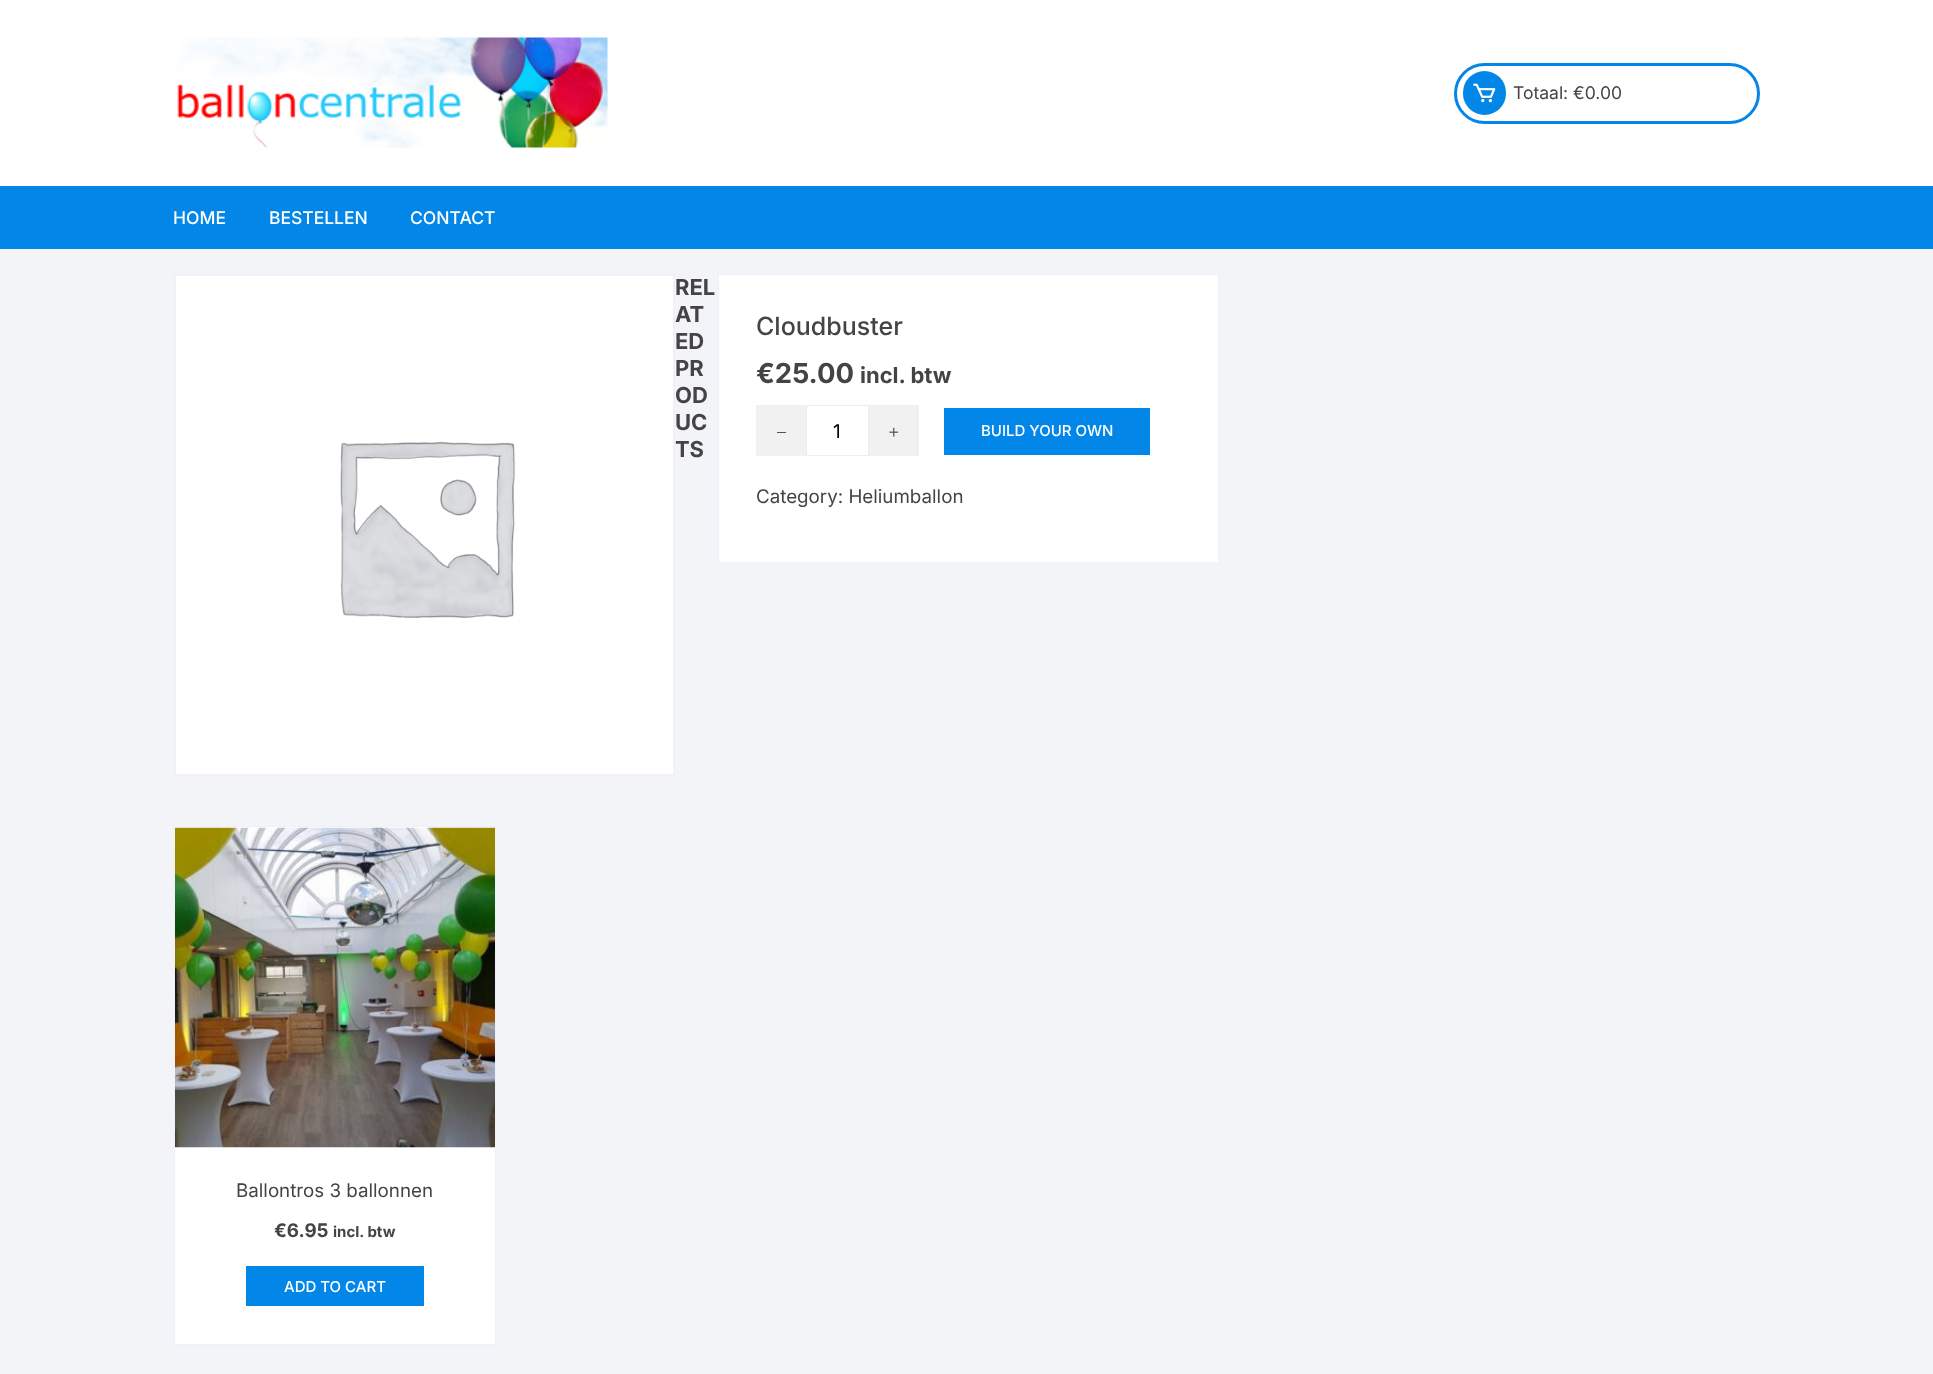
<?xml version="1.0" encoding="UTF-8"?>
<svg xmlns="http://www.w3.org/2000/svg" xmlns:xlink="http://www.w3.org/1999/xlink" width="1933" height="1374">
  <rect width="100%" height="100%" fill="#f3f4f8" />
  <rect width="1933" height="186" fill="#ffffff" />
  <image x="177" y="37" width="431" height="111" xlink:href="image1.png" />
  <rect x="1455.5" y="64.5" width="303" height="58" rx="29" fill="none" stroke="#0286e7" stroke-width="3" />
  <rect x="1463" y="71" width="43" height="44" rx="21.5" fill="#0286e7" />
  <image x="1473" y="83" width="23" height="20" xlink:href="image2.png" />
  <rect y="186" width="1933" height="63" fill="#0286e7" />
  <rect x="176" y="276" width="497" height="498" fill="#ffffff" />
  <rect x="174.5" y="274.5" width="500" height="501" fill="none" stroke="#eef1fd" />
  <rect x="175.5" y="275.5" width="498" height="499" fill="none" stroke="#f2f2f2" />
  <image x="340" y="441" width="176" height="178" xlink:href="image3.png" />
  <rect x="174.5" y="826.5" width="321" height="518" fill="#ffffff" stroke="#eef1fd" />
  <image x="175" y="827" width="320" height="321" xlink:href="image4.png" />
  <rect x="246" y="1266" width="178" height="40" fill="#0286e7" />
  <rect x="718.5" y="274.5" width="500" height="288" fill="#ffffff" stroke="#eef1fd" />
  <rect x="756" y="405" width="50" height="51" fill="#f1f1f1" />
  <rect x="777" y="432" width="9" height="1" fill="#555555" />
  <rect x="806.5" y="405.5" width="62" height="50" fill="none" stroke="#ececec" />
  <rect x="869" y="405" width="50" height="51" fill="#f1f1f1" />
  <image x="889" y="427" width="10" height="10" xlink:href="image5.png" />
  <rect x="944" y="408" width="206" height="47" fill="#0286e7" />
  <text x="1513" y="99" style="font-family: Inter; font-size: 17.5px; fill: #444444">Totaal: €0.00</text>
  <text x="173" y="224" style="font-family: Inter; font-size: 17.5px; font-weight: 500; fill: #ffffff">HOME</text>
  <text x="269" y="224" style="font-family: Inter; font-size: 17.5px; font-weight: 500; fill: #ffffff">BESTELLEN</text>
  <text x="410" y="224" style="font-family: Inter; font-size: 17.5px; font-weight: 500; fill: #ffffff">CONTACT</text>
  <text x="675" y="295" style="font-family: Inter; font-size: 22px; font-weight: bold; fill: #444444">REL</text>
  <text x="675" y="322" style="font-family: Inter; font-size: 22px; font-weight: bold; fill: #444444">AT</text>
  <text x="675" y="349" style="font-family: Inter; font-size: 22px; font-weight: bold; fill: #444444">ED</text>
  <text x="675" y="376" style="font-family: Inter; font-size: 22px; font-weight: bold; fill: #444444">PR</text>
  <text x="675" y="403" style="font-family: Inter; font-size: 22px; font-weight: bold; fill: #444444">OD</text>
  <text x="675" y="430" style="font-family: Inter; font-size: 22px; font-weight: bold; fill: #444444">UC</text>
  <text x="675" y="457" style="font-family: Inter; font-size: 22px; font-weight: bold; fill: #444444">TS</text>
  <text x="236" y="1197" style="font-family: Inter; font-size: 18.75px; fill: #444444">Ballontros 3 ballonnen</text>
  <text x="274" y="1237" style="font-family: Inter; font-size: 18.75px; font-weight: bold; fill: #444444">€6.95</text>
  <text x="333" y="1237" style="font-family: Inter; font-size: 15px; font-weight: bold; fill: #444444">incl. btw</text>
  <text x="284" y="1292" style="font-family: Inter; font-size: 15px; font-weight: 500; fill: #ffffff">ADD TO CART</text>
  <text x="756" y="335" style="font-family: Inter; font-size: 25px; font-weight: 500; fill: #444444">Cloudbuster</text>
  <text x="756" y="383" style="font-family: Inter; font-size: 27.5px; font-weight: bold; fill: #444444">€25.00</text>
  <text x="860" y="383" style="font-family: Inter; font-size: 22px; font-weight: bold; fill: #444444">incl. btw</text>
  <text x="833" y="438" style="font-family: Inter; font-size: 18.75px; fill: #000000">1</text>
  <text x="981" y="436" style="font-family: Inter; font-size: 15px; font-weight: 500; fill: #ffffff">BUILD YOUR OWN</text>
  <text x="756" y="503" style="font-family: Inter; font-size: 18.75px; fill: #444444">Category: Heliumballon</text>
</svg>
